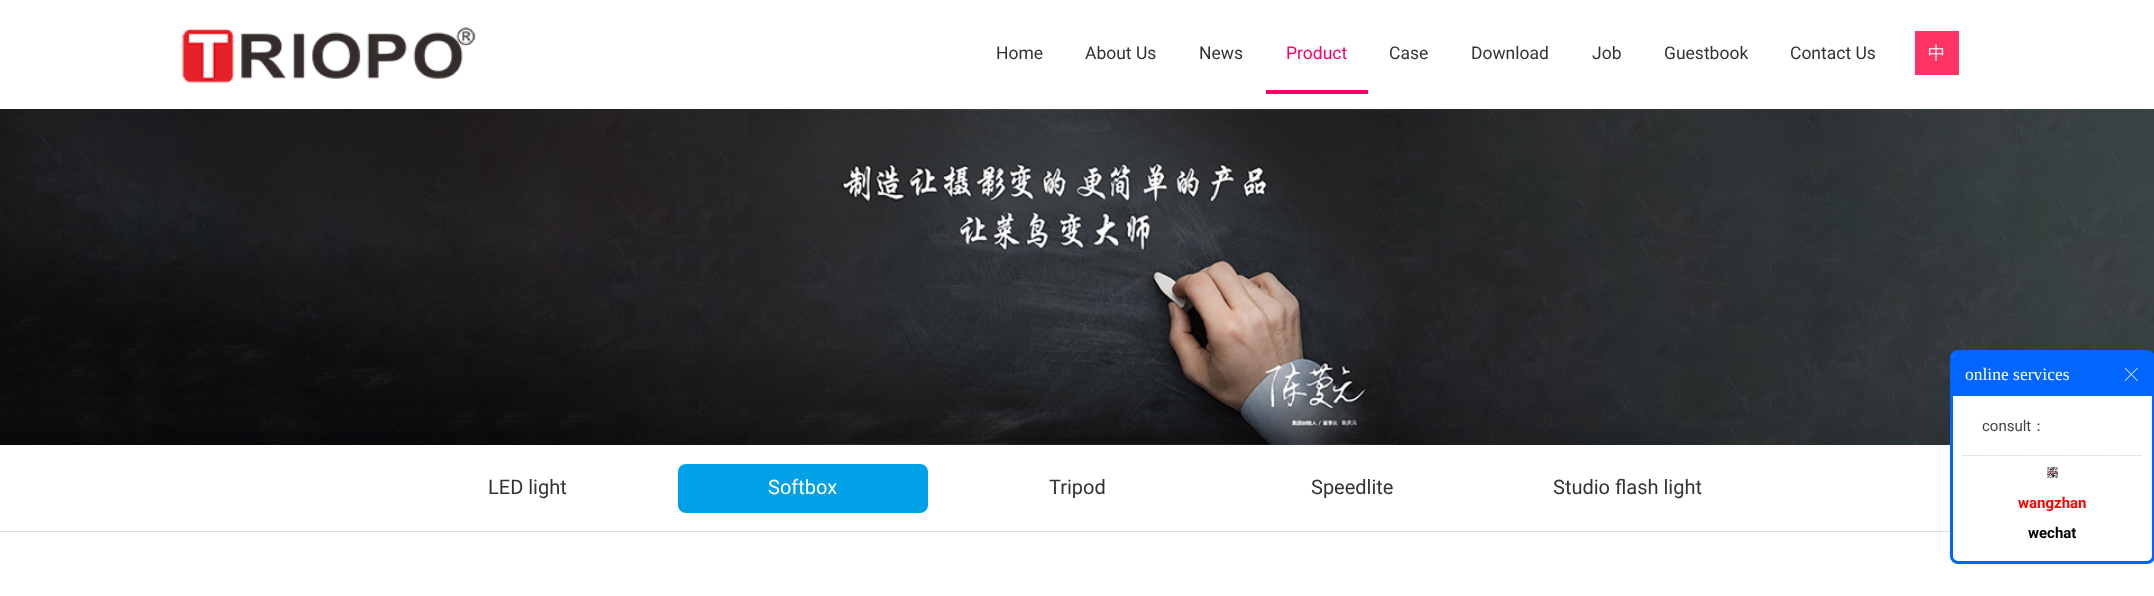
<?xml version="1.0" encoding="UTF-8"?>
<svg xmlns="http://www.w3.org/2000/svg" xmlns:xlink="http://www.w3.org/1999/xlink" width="2154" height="596">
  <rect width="100%" height="100%" fill="#ffffff" />
  <image x="182" y="27" width="294" height="56" xlink:href="image1.png" />
  <rect x="1266" y="90" width="102" height="4" fill="#ff0066" />
  <rect x="1915" y="31" width="44" height="44" fill="#ff3366" />
  <image x="0" y="109" width="2154" height="336" xlink:href="image2.png" />
  <rect y="531" width="1950" height="1" fill="#dddddd" />
  <rect x="678" y="464" width="250" height="49" rx="8" fill="#00a1e7" />
  <rect x="1951.5" y="351.5" width="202" height="211" rx="6.5" fill="#ffffff" stroke="#0066ff" stroke-width="3" />
  <path d="M 1958 353 h 190 c 3 0 5 2 5 5 v 38 h -200 v -38 c 0 -3 2 -5 5 -5 z" fill="#0066ff" />
  <image x="2124" y="367" width="14" height="14" xlink:href="image3.png" />
  <path d="M 1962.5 455.5 h 180" fill="none" stroke="#cccccc" stroke-width="1.2" stroke-dasharray="1.25 1.25" />
  <image x="2047" y="467" width="11" height="11" xlink:href="image4.png" />
  <text x="996" y="59" style="font-family: Roboto; font-size: 17.5px; fill: #333333">Home</text>
  <text x="1085" y="59" style="font-family: Roboto; font-size: 17.5px; fill: #333333">About Us</text>
  <text x="1199" y="59" style="font-family: Roboto; font-size: 17.5px; fill: #333333">News</text>
  <text x="1286" y="59" style="font-family: Roboto; font-size: 17.5px; fill: #ff0066">Product</text>
  <text x="1389" y="59" style="font-family: Roboto; font-size: 17.5px; fill: #333333">Case</text>
  <text x="1471" y="59" style="font-family: Roboto; font-size: 17.5px; fill: #333333">Download</text>
  <text x="1592" y="59" style="font-family: Roboto; font-size: 17.5px; fill: #333333">Job</text>
  <text x="1664" y="59" style="font-family: Roboto; font-size: 17.5px; fill: #333333">Guestbook</text>
  <text x="1790" y="59" style="font-family: Roboto; font-size: 17.5px; fill: #333333">Contact Us</text>
  <text x="1928" y="59" style="font-family: WenQuanYi Zen Hei; font-size: 17.5px; font-weight: 500; fill: #ffffff">中</text>
  <text x="488" y="494" style="font-family: Roboto; font-size: 20px; fill: #333333">LED light</text>
  <text x="768" y="494" style="font-family: Roboto; font-size: 20px; fill: #ffffff">Softbox</text>
  <text x="1049" y="494" style="font-family: Roboto; font-size: 20px; fill: #333333">Tripod</text>
  <text x="1311" y="494" style="font-family: Roboto; font-size: 20px; fill: #333333">Speedlite</text>
  <text x="1553" y="494" style="font-family: Roboto; font-size: 20px; fill: #333333">Studio flash light</text>
  <text x="1965" y="380" style="font-family: Liberation Serif; font-size: 17.5px; fill: #ffffff">online services</text>
  <text x="1982" y="431" style="font-family: Roboto; font-size: 15px; fill: #444444">consult</text>
  <text x="2031" y="431" style="font-family: WenQuanYi Zen Hei; font-size: 15px; font-weight: 500; fill: #444444">：</text>
  <text x="2018" y="508" style="font-family: Roboto; font-size: 15px; font-weight: bold; fill: #ff0000">wangzhan</text>
  <text x="2028" y="538" style="font-family: Roboto; font-size: 15px; font-weight: bold; fill: #000000">wechat</text>
</svg>
